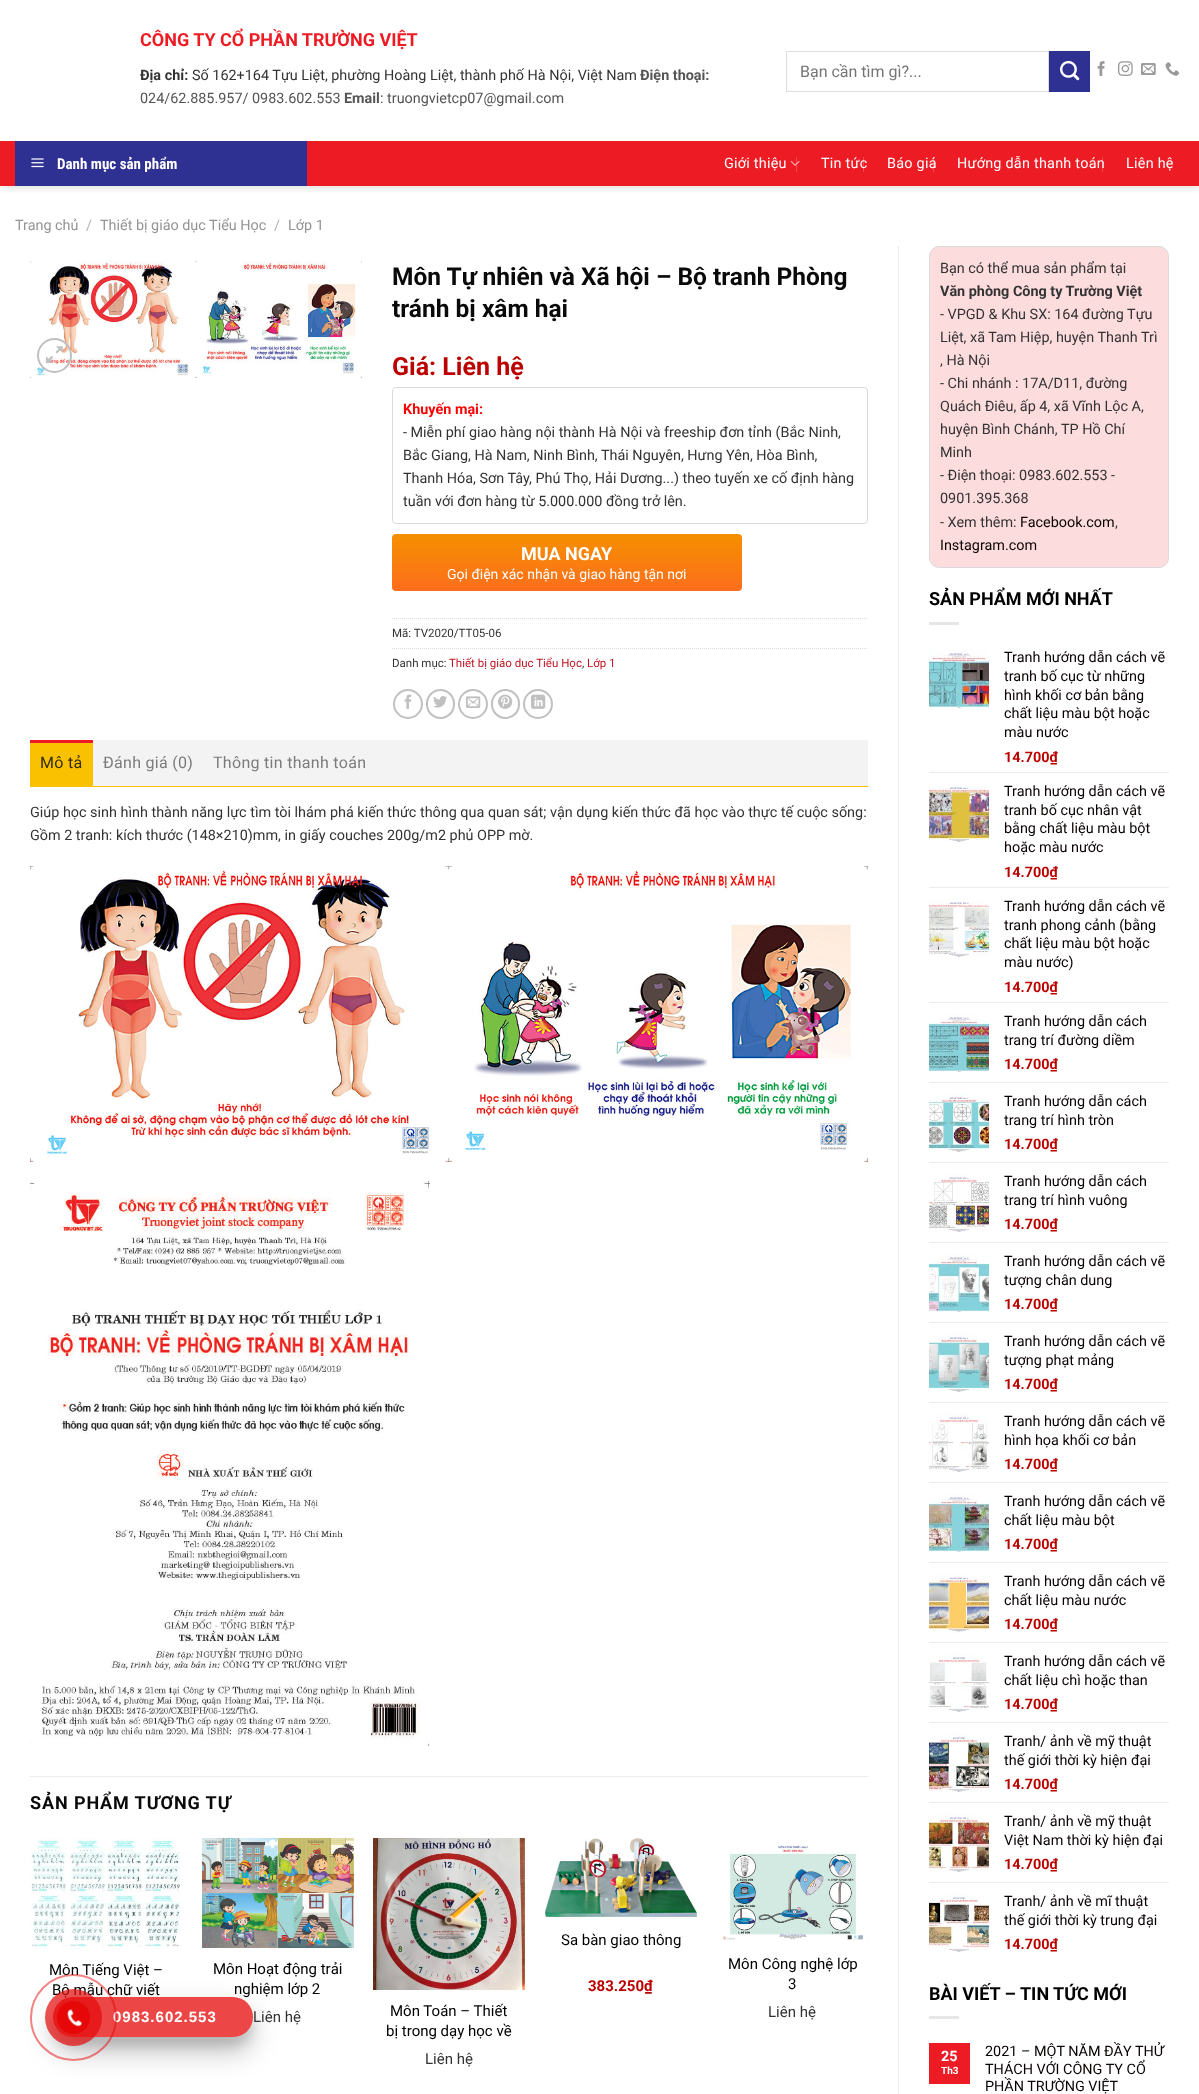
<?xml version="1.0" encoding="UTF-8"?>
<svg xmlns="http://www.w3.org/2000/svg" xmlns:xlink="http://www.w3.org/1999/xlink" width="1199" height="2094">
  <defs>
    <clipPath id="clip1"><rect x="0" y="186" width="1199" height="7" /></clipPath>
    <linearGradient id="g1" gradientUnits="userSpaceOnUse" x1="567" y1="534" x2="567" y2="591"><stop offset="0" stop-color="#f59000" /><stop offset="1" stop-color="#fd6e1d" /></linearGradient>
    <clipPath id="clip2"><path d="M 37 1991 h 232 v 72 h -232 z m 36 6 h 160 c 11 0 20 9 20 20 c 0 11 -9 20 -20 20 h -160 c -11 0 -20 -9 -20 -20 c 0 -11 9 -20 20 -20 z" clip-rule="evenodd" /></clipPath>
    <clipPath id="clip3"><path d="M 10 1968 h 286 v 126 h -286 z m 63 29 h 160 c 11 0 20 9 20 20 c 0 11 -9 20 -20 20 h -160 c -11 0 -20 -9 -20 -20 c 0 -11 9 -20 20 -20 z" clip-rule="evenodd" /></clipPath>
  </defs>
  <rect width="100%" height="100%" fill="#ffffff" />
  <g clip-path="url(#clip1)">
    <rect x="1" y="1" width="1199" height="186" fill="#000000" fill-opacity="0.15" filter="blur(5px)" />
  </g>
  <rect x="786.5" y="51.5" width="262" height="40" fill="none" stroke="#dddddd" />
  <rect x="1049.5" y="51.5" width="40" height="40" fill="#2e3192" stroke="#2c2f8b" />
  <image x="1060" y="60" width="20" height="21" xlink:href="image1.png" />
  <image x="1097" y="61" width="8" height="15" xlink:href="image2.png" />
  <image x="1118" y="61" width="15" height="15" xlink:href="image3.png" />
  <image x="1141" y="63" width="15" height="12" xlink:href="image4.png" />
  <image x="1165" y="62" width="15" height="14" xlink:href="image5.png" />
  <rect y="141" width="1199" height="45" fill="#ed1b24" />
  <rect x="15" y="141" width="292" height="45" fill="#2e3192" />
  <image x="31" y="158" width="13" height="10" xlink:href="image6.png" />
  <image x="790" y="160" width="10" height="6" xlink:href="image7.png" />
  <rect x="796" y="157" width="1" height="15" fill="#ffffff" fill-opacity="0.2" />
  <rect x="898" y="246" width="1" height="1848" fill="#ececec" />
  <image x="30" y="261" width="332" height="117" xlink:href="image8.png" />
  <circle cx="54.5" cy="355.5" r="16.5" fill="none" stroke="#c0c0c0" stroke-width="2" />
  <image x="46" y="346" width="17" height="18" xlink:href="image9.png" />
  <rect x="392.5" y="387.5" width="475" height="136" rx="3.5" fill="none" stroke="#dadada" />
  <rect x="392" y="534" width="350" height="57" rx="4" fill="url(#g1)" />
  <path d="M 392 618.5 h 476" fill="none" stroke="#dddddd" stroke-dasharray="1 1" />
  <path d="M 392 648.5 h 476" fill="none" stroke="#dddddd" stroke-dasharray="1 1" />
  <circle cx="408" cy="704" r="14" fill="none" stroke="#c0c0c0" stroke-width="2" />
  <image x="404" y="694" width="8" height="15" xlink:href="image10.png" />
  <rect x="427" y="690" width="27" height="28" rx="13.5" fill="none" stroke="#c0c0c0" stroke-width="2" />
  <image x="433" y="696" width="14" height="12" xlink:href="image11.png" />
  <circle cx="473" cy="704" r="14" fill="none" stroke="#c0c0c0" stroke-width="2" />
  <image x="466" y="696" width="15" height="12" xlink:href="image12.png" />
  <rect x="492" y="690" width="27" height="28" rx="13.5" fill="none" stroke="#c0c0c0" stroke-width="2" />
  <image x="498" y="694" width="15" height="15" xlink:href="image13.png" />
  <circle cx="538" cy="704" r="14" fill="none" stroke="#c0c0c0" stroke-width="2" />
  <image x="531" y="694" width="15" height="15" xlink:href="image14.png" />
  <rect x="93" y="740" width="775" height="46" fill="#f3f3f3" />
  <rect x="30" y="786" width="838" height="1" fill="#fac100" />
  <rect x="30" y="743" width="63" height="43" fill="#fac100" />
  <rect x="30" y="740" width="63" height="3" fill="#ed1b24" />
  <image x="30" y="866" width="838" height="296" xlink:href="image15.png" />
  <image x="30" y="1181" width="400" height="565" xlink:href="image16.png" />
  <rect x="30" y="1776" width="838" height="1" fill="#ececec" />
  <image x="30" y="1838" width="150" height="111" xlink:href="image17.png" />
  <image x="202" y="1838" width="152" height="110" xlink:href="image18.png" />
  <image x="545" y="1838" width="152" height="79" xlink:href="image19.png" />
  <image x="717" y="1842" width="152" height="101" xlink:href="image20.png" />
  <image x="373" y="1838" width="152" height="152" xlink:href="image21.png" />
  <rect x="929.5" y="246.5" width="239" height="321" rx="9.5" fill="#fddcde" stroke="#dadada" />
  <rect x="929" y="622" width="30" height="3" fill="#e6e6e6" />
  <image x="929" y="649" width="60" height="60" xlink:href="image22.png" />
  <rect x="929" y="772" width="240" height="1" fill="#ececec" />
  <image x="929" y="785" width="60" height="57" xlink:href="image23.png" />
  <rect x="929" y="887" width="240" height="1" fill="#ececec" />
  <image x="929" y="898" width="60" height="59" xlink:href="image24.png" />
  <rect x="929" y="1002" width="240" height="1" fill="#ececec" />
  <image x="929" y="1013" width="60" height="59" xlink:href="image25.png" />
  <rect x="929" y="1082" width="240" height="1" fill="#ececec" />
  <image x="929" y="1094" width="60" height="58" xlink:href="image26.png" />
  <rect x="929" y="1162" width="240" height="1" fill="#ececec" />
  <image x="929" y="1173" width="60" height="59" xlink:href="image27.png" />
  <rect x="929" y="1242" width="240" height="1" fill="#ececec" />
  <image x="929" y="1253" width="60" height="60" xlink:href="image28.png" />
  <rect x="929" y="1322" width="240" height="1" fill="#ececec" />
  <image x="929" y="1333" width="60" height="59" xlink:href="image29.png" />
  <rect x="929" y="1402" width="240" height="1" fill="#ececec" />
  <image x="929" y="1413" width="60" height="59" xlink:href="image30.png" />
  <rect x="929" y="1482" width="240" height="1" fill="#ececec" />
  <image x="929" y="1493" width="60" height="60" xlink:href="image31.png" />
  <rect x="929" y="1562" width="240" height="1" fill="#ececec" />
  <image x="929" y="1573" width="60" height="60" xlink:href="image32.png" />
  <rect x="929" y="1642" width="240" height="1" fill="#ececec" />
  <image x="929" y="1653" width="60" height="59" xlink:href="image33.png" />
  <rect x="929" y="1722" width="240" height="1" fill="#ececec" />
  <image x="929" y="1733" width="60" height="59" xlink:href="image34.png" />
  <rect x="929" y="1802" width="240" height="1" fill="#ececec" />
  <image x="929" y="1813" width="60" height="59" xlink:href="image35.png" />
  <rect x="929" y="1882" width="240" height="1" fill="#ececec" />
  <image x="929" y="1893" width="60" height="59" xlink:href="image36.png" />
  <rect x="929" y="2016" width="30" height="3" fill="#e6e6e6" />
  <rect x="929" y="2043" width="41" height="41" fill="#ed1b24" />
  <g clip-path="url(#clip2)">
    <rect x="53" y="2007" width="200" height="40" rx="20" fill="#000000" fill-opacity="0.1" filter="blur(5px)" />
  </g>
  <g clip-path="url(#clip3)">
    <rect x="53" y="2011" width="200" height="40" rx="20" fill="#000000" fill-opacity="0.25" filter="blur(14px)" />
  </g>
  <text x="140" y="46" style="font-family: Roboto; font-size: 18px; font-weight: bold; fill: #ed1b24">CÔNG TY CỔ PHẦN TRƯỜNG VIỆT</text>
  <text x="140" y="80" style="font-family: Roboto; font-size: 14.4px; font-weight: bold; fill: #333333">Địa chỉ:</text>
  <text x="192" y="80" style="font-family: Roboto; font-size: 14.4px; fill: #333333">Số 162+164 Tựu Liệt, phường Hoàng Liệt, thành phố Hà Nội, Việt Nam</text>
  <text x="640" y="80" style="font-family: Roboto; font-size: 14.4px; font-weight: bold; fill: #555555">Điện thoại:</text>
  <text x="140" y="103" style="font-family: Roboto; font-size: 14.4px; fill: #555555">024/62.885.957/ 0983.602.553</text>
  <text x="344" y="103" style="font-family: Roboto; font-size: 14.4px; font-weight: bold; fill: #555555">Email</text>
  <text x="380" y="103" style="font-family: Roboto; font-size: 14.4px; fill: #555555">: truongvietcp07@gmail.com</text>
  <text x="800" y="77" style="font-family: Roboto; font-size: 16px; fill: #757575">Bạn cần tìm gì?...</text>
  <text x="57" y="169" style="font-family: Roboto Condensed; font-size: 15px; font-weight: bold; fill: #ffffff">Danh mục sản phẩm</text>
  <text x="724" y="168" style="font-family: Roboto; font-size: 14.4px; letter-spacing: 0.25px; fill: #ffffff">Giới thiệu</text>
  <text x="821" y="168" style="font-family: Roboto; font-size: 14.4px; letter-spacing: 0.25px; fill: #ffffff">Tin tức</text>
  <rect x="863" y="157" width="1" height="15" fill="#ffffff" fill-opacity="0.2" />
  <text x="887" y="168" style="font-family: Roboto; font-size: 14.4px; letter-spacing: 0.25px; fill: #ffffff">Báo giá</text>
  <rect x="933" y="157" width="1" height="15" fill="#ffffff" fill-opacity="0.2" />
  <text x="957" y="168" style="font-family: Roboto; font-size: 14.4px; letter-spacing: 0.25px; fill: #ffffff">Hướng dẫn thanh toán</text>
  <rect x="1102" y="157" width="1" height="15" fill="#ffffff" fill-opacity="0.2" />
  <text x="1126" y="168" style="font-family: Roboto; font-size: 14.4px; letter-spacing: 0.25px; fill: #ffffff">Liên hệ</text>
  <text x="15" y="230" style="font-family: Roboto; font-size: 14.4px; fill: #949494">Trang chủ</text>
  <text x="86" y="230" style="font-family: Roboto; font-size: 14.4px; fill: #b2b2b2">/</text>
  <text x="100" y="230" style="font-family: Roboto; font-size: 14.4px; fill: #949494">Thiết bị giáo dục Tiểu Học</text>
  <text x="274" y="230" style="font-family: Roboto; font-size: 14.4px; fill: #b2b2b2">/</text>
  <text x="288" y="230" style="font-family: Roboto; font-size: 14.4px; fill: #949494">Lớp 1</text>
  <text x="392" y="285" style="font-family: Roboto; font-size: 24.5px; font-weight: bold; fill: #0a0a0a">Môn Tự nhiên và Xã hội – Bộ tranh Phòng</text>
  <text x="392" y="317" style="font-family: Roboto; font-size: 24.5px; font-weight: bold; fill: #0a0a0a">tránh bị xâm hại</text>
  <text x="392" y="375" style="font-family: Roboto; font-size: 25px; font-weight: bold; fill: #bc0000">Giá: Liên hệ</text>
  <text x="403" y="414" style="font-family: Roboto; font-size: 14.4px; font-weight: bold; fill: #ff0000">Khuyến mại:</text>
  <text x="403" y="437" style="font-family: Roboto; font-size: 14.4px; fill: #333333">- Miễn phí giao hàng nội thành Hà Nội và freeship đơn tỉnh (Bắc Ninh,</text>
  <text x="403" y="460" style="font-family: Roboto; font-size: 14.4px; fill: #333333">Bắc Giang, Hà Nam, Ninh Bình, Thái Nguyên, Hưng Yên, Hòa Bình,</text>
  <text x="403" y="483" style="font-family: Roboto; font-size: 14.4px; fill: #333333">Thanh Hóa, Sơn Tây, Phú Thọ, Hải Dương...) theo tuyến xe cố định hàng</text>
  <text x="403" y="506" style="font-family: Roboto; font-size: 14.4px; fill: #333333">tuần với đơn hàng từ 5.000.000 đồng trở lên.</text>
  <text x="521" y="560" style="font-family: Roboto; font-size: 18px; font-weight: bold; fill: #ffffff">MUA NGAY</text>
  <text x="447" y="579" style="font-family: Roboto; font-size: 14px; fill: #ffffff">Gọi điện xác nhận và giao hàng tận nơi</text>
  <text x="392" y="637" style="font-family: Roboto; font-size: 11.5px; fill: #333333">Mã: TV2020/TT05-06</text>
  <text x="392" y="667" style="font-family: Roboto; font-size: 11.5px; fill: #333333">Danh mục:</text>
  <text x="449" y="667" style="font-family: Roboto; font-size: 11.5px; fill: #bf1420">Thiết bị giáo dục Tiểu Học</text>
  <text x="582" y="667" style="font-family: Roboto; font-size: 11.5px; fill: #333333">,</text>
  <text x="587" y="667" style="font-family: Roboto; font-size: 11.5px; fill: #bf1420">Lớp 1</text>
  <text x="40" y="768" style="font-family: Roboto; font-size: 16px; letter-spacing: 0.3px; fill: #342b0e">Mô tả</text>
  <text x="103" y="768" style="font-family: Roboto; font-size: 16px; letter-spacing: 0.3px; fill: #7b7b7b">Đánh giá (0)</text>
  <text x="213" y="768" style="font-family: Roboto; font-size: 16px; letter-spacing: 0.3px; fill: #7b7b7b">Thông tin thanh toán</text>
  <text x="30" y="817" style="font-family: Roboto; font-size: 14.4px; fill: #333333">Giúp học sinh hình thành năng lực tìm tòi lhám phá kiến thức thông qua quan sát; vận dụng kiến thức đã học vào thực tế cuộc sống:</text>
  <text x="30" y="840" style="font-family: Roboto; font-size: 14.4px; fill: #333333">Gồm 2 tranh: kích thước (148×210)mm, in giấy couches 200g/m2 phủ OPP mờ.</text>
  <text x="30" y="1809" style="font-family: Roboto; font-size: 18px; font-weight: bold; letter-spacing: 0.9px; fill: #0a0a0a">SẢN PHẨM TƯƠNG TỰ</text>
  <text x="49" y="1975" style="font-family: Roboto; font-size: 15px; fill: #000000">Môn Tiếng Việt –</text>
  <text x="52" y="1995" style="font-family: Roboto; font-size: 15px; fill: #000000">Bộ mẫu chữ viết</text>
  <text x="213" y="1974" style="font-family: Roboto; font-size: 15px; fill: #000000">Môn Hoạt động trải</text>
  <text x="234" y="1994" style="font-family: Roboto; font-size: 15px; fill: #000000">nghiệm lớp 2</text>
  <text x="253" y="2022" style="font-family: Roboto; font-size: 15px; fill: #333333">Liên hệ</text>
  <text x="561" y="1945" style="font-family: Roboto; font-size: 15px; fill: #000000">Sa bàn giao thông</text>
  <text x="588" y="1991" style="font-family: Roboto; font-size: 15px; font-weight: bold; fill: #bc0000">383.250₫</text>
  <text x="728" y="1969" style="font-family: Roboto; font-size: 15px; fill: #000000">Môn Công nghệ lớp</text>
  <text x="788" y="1989" style="font-family: Roboto; font-size: 15px; fill: #000000">3</text>
  <text x="768" y="2017" style="font-family: Roboto; font-size: 15px; fill: #333333">Liên hệ</text>
  <text x="390" y="2016" style="font-family: Roboto; font-size: 15px; fill: #000000">Môn Toán – Thiết</text>
  <text x="386" y="2036" style="font-family: Roboto; font-size: 15px; fill: #000000">bị trong dạy học về</text>
  <text x="425" y="2064" style="font-family: Roboto; font-size: 15px; fill: #333333">Liên hệ</text>
  <text x="940" y="273" style="font-family: Roboto; font-size: 14.4px; fill: #333333">Bạn có thể mua sản phẩm tại</text>
  <text x="940" y="296" style="font-family: Roboto; font-size: 14.4px; font-weight: bold; fill: #333333">Văn phòng Công ty Trường Việt</text>
  <text x="940" y="319" style="font-family: Roboto; font-size: 14.4px; fill: #333333">- VPGD &amp; Khu SX: 164 đường Tựu</text>
  <text x="940" y="342" style="font-family: Roboto; font-size: 14.4px; fill: #333333">Liệt, xã Tam Hiệp, huyện Thanh Trì</text>
  <text x="940" y="365" style="font-family: Roboto; font-size: 14.4px; fill: #333333">, Hà Nội</text>
  <text x="940" y="388" style="font-family: Roboto; font-size: 14.4px; fill: #333333">- Chi nhánh : 17A/D11, đường</text>
  <text x="940" y="411" style="font-family: Roboto; font-size: 14.4px; fill: #333333">Quách Điêu, ấp 4, xã Vĩnh Lộc A,</text>
  <text x="940" y="434" style="font-family: Roboto; font-size: 14.4px; fill: #333333">huyện Bình Chánh, TP Hồ Chí</text>
  <text x="940" y="457" style="font-family: Roboto; font-size: 14.4px; fill: #333333">Minh</text>
  <text x="940" y="480" style="font-family: Roboto; font-size: 14.4px; fill: #333333">- Điện thoại: 0983.602.553 -</text>
  <text x="940" y="503" style="font-family: Roboto; font-size: 14.4px; fill: #333333">0901.395.368</text>
  <text x="940" y="527" style="font-family: Roboto; font-size: 14.4px; fill: #333333">- Xem thêm:</text>
  <text x="1020" y="527" style="font-family: Roboto; font-size: 14.4px; fill: #0a0202">Facebook.com</text>
  <text x="1115" y="527" style="font-family: Roboto; font-size: 14.4px; fill: #333333">,</text>
  <text x="940" y="550" style="font-family: Roboto; font-size: 14.4px; fill: #0a0202">Instagram.com</text>
  <text x="929" y="605" style="font-family: Roboto; font-size: 18px; font-weight: bold; fill: #000000">SẢN PHẨM MỚI NHẤT</text>
  <text x="1004" y="662" style="font-family: Roboto; font-size: 14.4px; fill: #0a0202">Tranh hướng dẫn cách vẽ</text>
  <text x="1004" y="681" style="font-family: Roboto; font-size: 14.4px; fill: #0a0202">tranh bố cục từ những</text>
  <text x="1004" y="700" style="font-family: Roboto; font-size: 14.4px; fill: #0a0202">hình khối cơ bản bằng</text>
  <text x="1004" y="718" style="font-family: Roboto; font-size: 14.4px; fill: #0a0202">chất liệu màu bột hoặc</text>
  <text x="1004" y="737" style="font-family: Roboto; font-size: 14.4px; fill: #0a0202">màu nước</text>
  <text x="1004" y="762" style="font-family: Roboto; font-size: 14.4px; font-weight: bold; fill: #bc0000">14.700₫</text>
  <text x="1004" y="796" style="font-family: Roboto; font-size: 14.4px; fill: #0a0202">Tranh hướng dẫn cách vẽ</text>
  <text x="1004" y="815" style="font-family: Roboto; font-size: 14.4px; fill: #0a0202">tranh bố cục nhân vật</text>
  <text x="1004" y="833" style="font-family: Roboto; font-size: 14.4px; fill: #0a0202">bằng chất liệu màu bột</text>
  <text x="1004" y="852" style="font-family: Roboto; font-size: 14.4px; fill: #0a0202">hoặc màu nước</text>
  <text x="1004" y="877" style="font-family: Roboto; font-size: 14.4px; font-weight: bold; fill: #bc0000">14.700₫</text>
  <text x="1004" y="911" style="font-family: Roboto; font-size: 14.4px; fill: #0a0202">Tranh hướng dẫn cách vẽ</text>
  <text x="1004" y="930" style="font-family: Roboto; font-size: 14.4px; fill: #0a0202">tranh phong cảnh (bằng</text>
  <text x="1004" y="948" style="font-family: Roboto; font-size: 14.4px; fill: #0a0202">chất liệu màu bột hoặc</text>
  <text x="1004" y="967" style="font-family: Roboto; font-size: 14.4px; fill: #0a0202">màu nước)</text>
  <text x="1004" y="992" style="font-family: Roboto; font-size: 14.4px; font-weight: bold; fill: #bc0000">14.700₫</text>
  <text x="1004" y="1026" style="font-family: Roboto; font-size: 14.4px; fill: #0a0202">Tranh hướng dẫn cách</text>
  <text x="1004" y="1045" style="font-family: Roboto; font-size: 14.4px; fill: #0a0202">trang trí đường diềm</text>
  <text x="1004" y="1069" style="font-family: Roboto; font-size: 14.4px; font-weight: bold; fill: #bc0000">14.700₫</text>
  <text x="1004" y="1106" style="font-family: Roboto; font-size: 14.4px; fill: #0a0202">Tranh hướng dẫn cách</text>
  <text x="1004" y="1125" style="font-family: Roboto; font-size: 14.4px; fill: #0a0202">trang trí hình tròn</text>
  <text x="1004" y="1149" style="font-family: Roboto; font-size: 14.4px; font-weight: bold; fill: #bc0000">14.700₫</text>
  <text x="1004" y="1186" style="font-family: Roboto; font-size: 14.4px; fill: #0a0202">Tranh hướng dẫn cách</text>
  <text x="1004" y="1205" style="font-family: Roboto; font-size: 14.4px; fill: #0a0202">trang trí hình vuông</text>
  <text x="1004" y="1229" style="font-family: Roboto; font-size: 14.4px; font-weight: bold; fill: #bc0000">14.700₫</text>
  <text x="1004" y="1266" style="font-family: Roboto; font-size: 14.4px; fill: #0a0202">Tranh hướng dẫn cách vẽ</text>
  <text x="1004" y="1285" style="font-family: Roboto; font-size: 14.4px; fill: #0a0202">tượng chân dung</text>
  <text x="1004" y="1309" style="font-family: Roboto; font-size: 14.4px; font-weight: bold; fill: #bc0000">14.700₫</text>
  <text x="1004" y="1346" style="font-family: Roboto; font-size: 14.4px; fill: #0a0202">Tranh hướng dẫn cách vẽ</text>
  <text x="1004" y="1365" style="font-family: Roboto; font-size: 14.4px; fill: #0a0202">tượng phạt mảng</text>
  <text x="1004" y="1389" style="font-family: Roboto; font-size: 14.4px; font-weight: bold; fill: #bc0000">14.700₫</text>
  <text x="1004" y="1426" style="font-family: Roboto; font-size: 14.4px; fill: #0a0202">Tranh hướng dẫn cách vẽ</text>
  <text x="1004" y="1445" style="font-family: Roboto; font-size: 14.4px; fill: #0a0202">hình họa khối cơ bản</text>
  <text x="1004" y="1469" style="font-family: Roboto; font-size: 14.4px; font-weight: bold; fill: #bc0000">14.700₫</text>
  <text x="1004" y="1506" style="font-family: Roboto; font-size: 14.4px; fill: #0a0202">Tranh hướng dẫn cách vẽ</text>
  <text x="1004" y="1525" style="font-family: Roboto; font-size: 14.4px; fill: #0a0202">chất liệu màu bột</text>
  <text x="1004" y="1549" style="font-family: Roboto; font-size: 14.4px; font-weight: bold; fill: #bc0000">14.700₫</text>
  <text x="1004" y="1586" style="font-family: Roboto; font-size: 14.4px; fill: #0a0202">Tranh hướng dẫn cách vẽ</text>
  <text x="1004" y="1605" style="font-family: Roboto; font-size: 14.4px; fill: #0a0202">chất liệu màu nước</text>
  <text x="1004" y="1629" style="font-family: Roboto; font-size: 14.4px; font-weight: bold; fill: #bc0000">14.700₫</text>
  <text x="1004" y="1666" style="font-family: Roboto; font-size: 14.4px; fill: #0a0202">Tranh hướng dẫn cách vẽ</text>
  <text x="1004" y="1685" style="font-family: Roboto; font-size: 14.4px; fill: #0a0202">chất liệu chì hoặc than</text>
  <text x="1004" y="1709" style="font-family: Roboto; font-size: 14.4px; font-weight: bold; fill: #bc0000">14.700₫</text>
  <text x="1004" y="1746" style="font-family: Roboto; font-size: 14.4px; fill: #0a0202">Tranh/ ảnh về mỹ thuật</text>
  <text x="1004" y="1765" style="font-family: Roboto; font-size: 14.4px; fill: #0a0202">thế giới thời kỳ hiện đại</text>
  <text x="1004" y="1789" style="font-family: Roboto; font-size: 14.4px; font-weight: bold; fill: #bc0000">14.700₫</text>
  <text x="1004" y="1826" style="font-family: Roboto; font-size: 14.4px; fill: #0a0202">Tranh/ ảnh về mỹ thuật</text>
  <text x="1004" y="1845" style="font-family: Roboto; font-size: 14.4px; fill: #0a0202">Việt Nam thời kỳ hiện đại</text>
  <text x="1004" y="1869" style="font-family: Roboto; font-size: 14.4px; font-weight: bold; fill: #bc0000">14.700₫</text>
  <text x="1004" y="1906" style="font-family: Roboto; font-size: 14.4px; fill: #0a0202">Tranh/ ảnh về mĩ thuật</text>
  <text x="1004" y="1925" style="font-family: Roboto; font-size: 14.4px; fill: #0a0202">thế giới thời kỳ trung đại</text>
  <text x="1004" y="1949" style="font-family: Roboto; font-size: 14.4px; font-weight: bold; fill: #bc0000">14.700₫</text>
  <text x="929" y="2000" style="font-family: Roboto; font-size: 18px; font-weight: bold; fill: #000000">BÀI VIẾT – TIN TỨC MỚI</text>
  <text x="941" y="2061" style="font-family: Roboto; font-size: 14.4px; font-weight: bold; fill: #ffffff">25</text>
  <text x="941" y="2074" style="font-family: Roboto; font-size: 10px; font-weight: bold; fill: #ffffff">Th3</text>
  <text x="985" y="2056" style="font-family: Roboto; font-size: 14.4px; fill: #0a0202">2021 – MỘT NĂM ĐẦY THỬ</text>
  <text x="985" y="2074" style="font-family: Roboto; font-size: 14.4px; fill: #0a0202">THÁCH VỚI CÔNG TY CỔ</text>
  <text x="985" y="2091" style="font-family: Roboto; font-size: 14.4px; fill: #0a0202">PHẦN TRƯỜNG VIỆT</text>
  <rect x="53" y="1997" width="200" height="40" rx="20" fill="#e60808" fill-opacity="0.75" />
  <text x="113" y="2022" style="font-family: Liberation Sans; font-size: 15px; font-weight: bold; letter-spacing: 1px; fill: #ffffff">0983.602.553</text>
  <circle cx="73.5" cy="2017.5" r="42.5" fill="none" stroke="#e60808" stroke-opacity="0.5" stroke-width="2" />
  <circle cx="73.5" cy="2017.5" r="28.5" fill="#e60808" fill-opacity="0.7" />
  <circle cx="73.5" cy="2017.5" r="16.5" fill="#e60808" />
  <image x="67" y="2009" width="16" height="18" xlink:href="image37.png" />
</svg>
